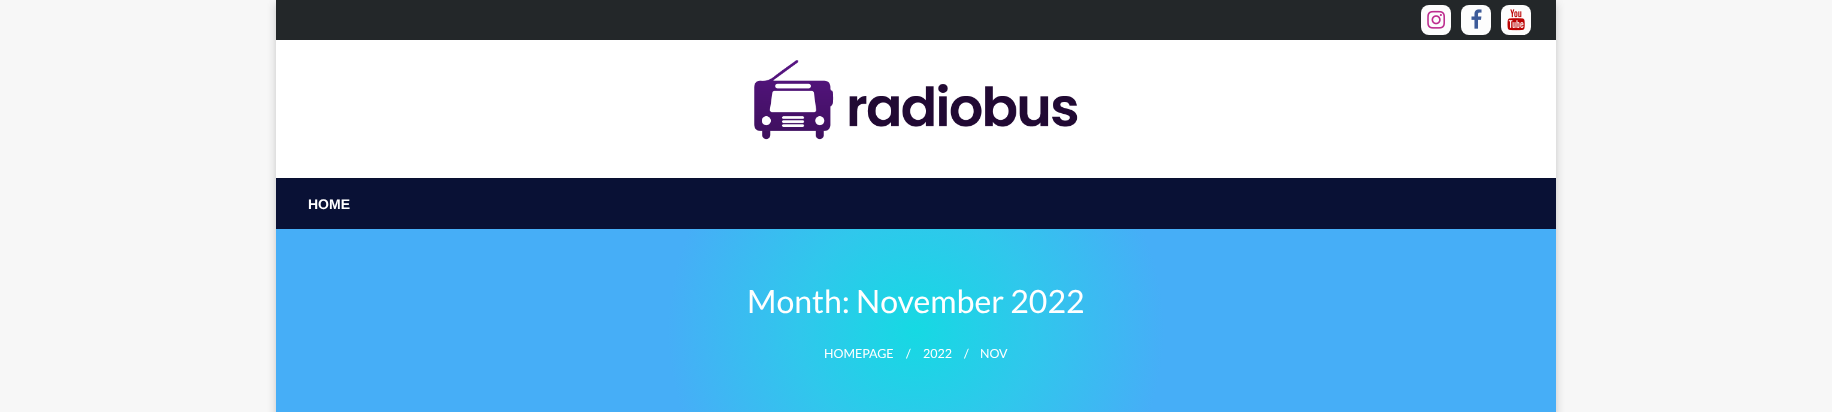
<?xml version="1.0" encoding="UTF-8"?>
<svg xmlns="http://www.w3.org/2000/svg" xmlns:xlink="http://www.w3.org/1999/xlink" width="1832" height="412">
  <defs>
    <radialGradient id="g1" gradientUnits="userSpaceOnUse" cx="916" cy="330" r="248"><stop offset="0" stop-color="#16d9e3" /><stop offset="0.47" stop-color="#30c7ec" /><stop offset="1" stop-color="#46aef7" /></radialGradient>
  </defs>
  <rect width="100%" height="100%" fill="#f7f7f7" />
  <rect x="276" y="3" width="1280" height="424" fill="#000000" fill-opacity="0.09" filter="blur(5px)" />
  <rect x="276" y="4" width="1280" height="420" fill="#000000" fill-opacity="0.1" filter="blur(4px)" />
  <rect x="276" width="1280" height="40" fill="#232729" />
  <rect x="1421" y="5" width="30" height="30" rx="8" fill="#fdfdfd" />
  <image x="1427" y="10" width="19" height="19" xlink:href="image1.png" />
  <rect x="1461" y="5" width="30" height="30" rx="8" fill="#fdfdfd" />
  <image x="1471" y="9" width="11" height="20" xlink:href="image2.png" />
  <rect x="1501" y="5" width="30" height="30" rx="8" fill="#fdfdfd" />
  <image x="1507" y="9" width="18" height="22" xlink:href="image3.png" />
  <rect x="276" y="40" width="1280" height="138" fill="#ffffff" />
  <image x="754" y="60" width="324" height="80" xlink:href="image4.png" />
  <rect x="276" y="179" width="1280" height="50" fill="#091135" />
  <rect x="276" y="178" width="1280" height="1" fill="#080f2f" />
  <rect x="276" y="229" width="1280" height="183" fill="url(#g1)" />
  <text x="308" y="209" style="font-family: Liberation Sans; font-size: 14px; font-weight: bold; fill: #ffffff">HOME</text>
  <text x="747" y="313" style="font-family: Lato; font-size: 32px; fill: #ffffff">Month: November 2022</text>
  <text x="824" y="358" style="font-family: Lato; font-size: 12.5px; fill: #ffffff">HOMEPAGE</text>
  <text x="906" y="358" style="font-family: Lato; font-size: 12.5px; fill: #ffffff">/</text>
  <text x="923" y="358" style="font-family: Lato; font-size: 12.5px; fill: #ffffff">2022</text>
  <text x="964" y="358" style="font-family: Lato; font-size: 12.5px; fill: #ffffff">/</text>
  <text x="980" y="358" style="font-family: Lato; font-size: 12.5px; fill: #ffffff">NOV</text>
</svg>
